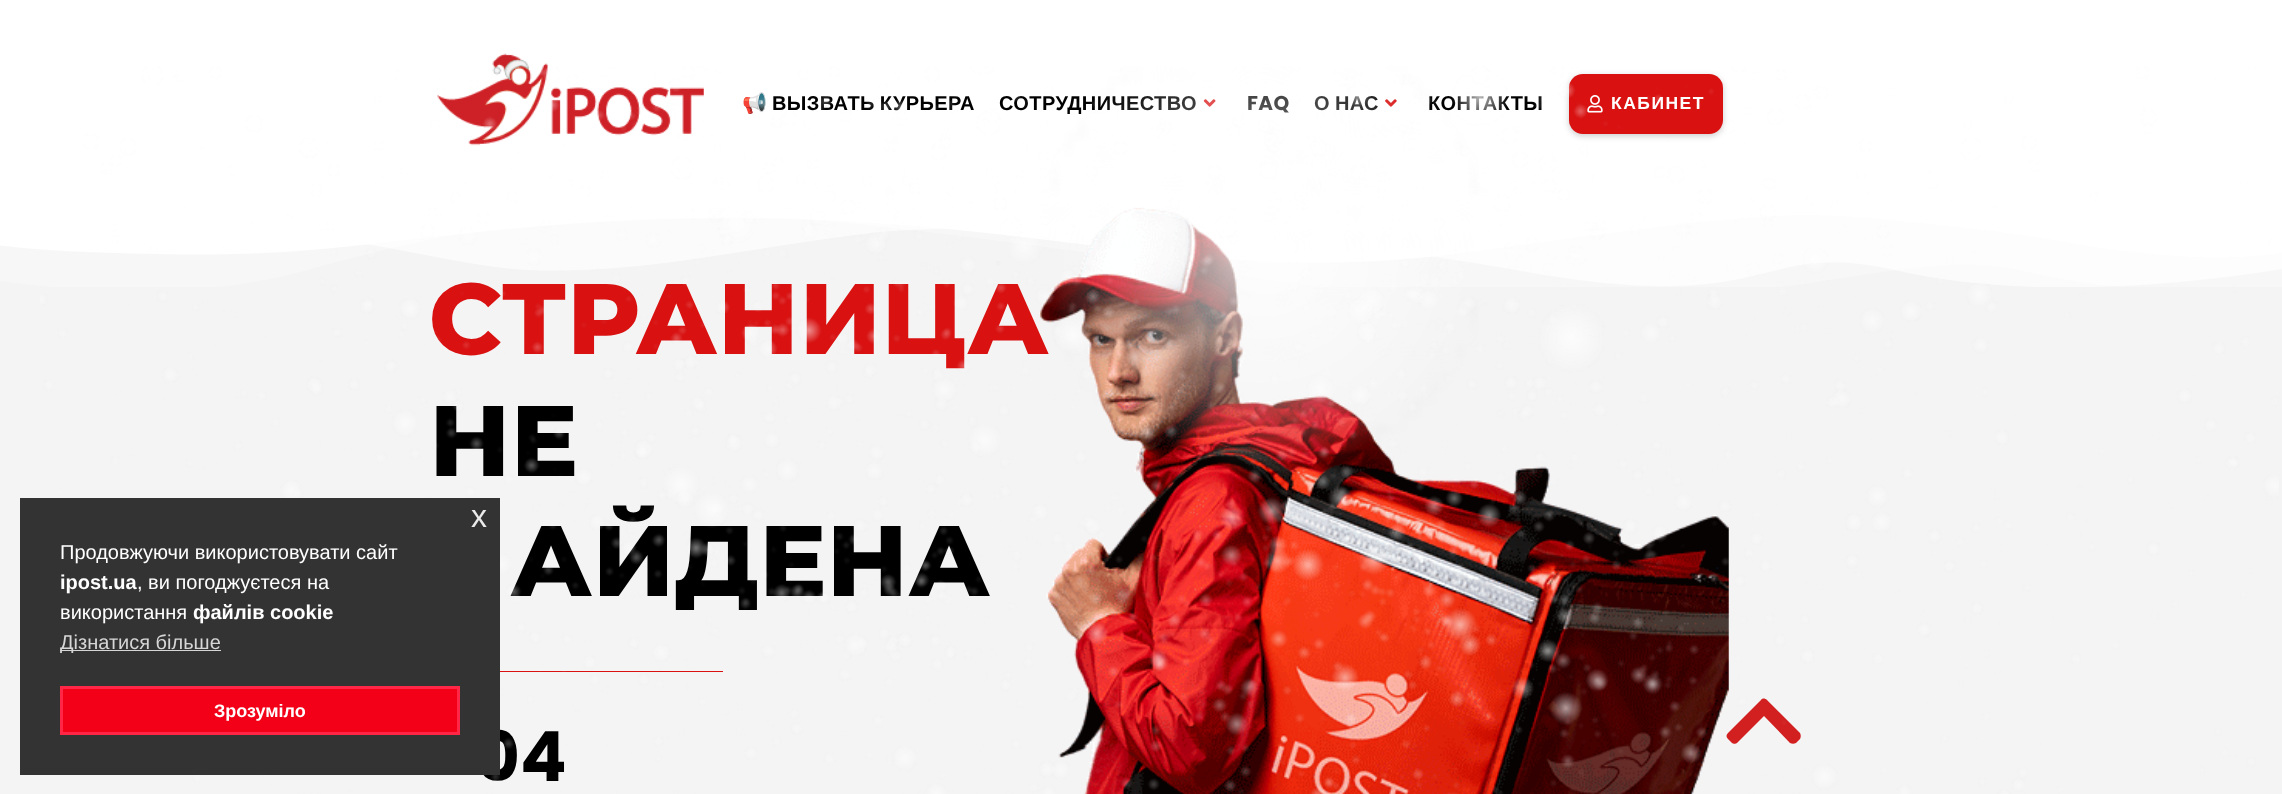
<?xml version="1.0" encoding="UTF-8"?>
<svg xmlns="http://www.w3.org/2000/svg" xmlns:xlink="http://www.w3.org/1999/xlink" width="2282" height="794">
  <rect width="100%" height="100%" fill="#ffffff" />
  <image x="437" y="53" width="267" height="93" xlink:href="image2.png" />
  <image x="1203" y="99" width="13" height="8" xlink:href="image3.png" />
  <image x="1385" y="99" width="12" height="8" xlink:href="image4.png" />
  <rect x="1569" y="76" width="154" height="60" rx="14" fill="#000000" fill-opacity="0.2" filter="blur(3px)" />
  <rect x="1569" y="74" width="154" height="60" rx="14" fill="#d91111" />
  <image x="1587" y="95" width="16" height="18" xlink:href="image5.png" />
  <rect y="215" width="2282" height="579" fill="#f4f4f4" />
  <image x="0" y="206" width="2282" height="81" xlink:href="image6.png" />
  <rect x="500" y="671" width="223" height="1" fill="#d91111" />
  <text x="742" y="110" style="font-family: Noto Color Emoji; font-size: 20px; font-weight: bold; letter-spacing: 0.4px; fill: #000000">📢</text>
  <text x="772" y="110" word-spacing="-1" style="font-family: Liberation Sans; font-size: 20px; font-weight: bold; letter-spacing: 0.4px; fill: #000000">ВЫЗВАТЬ КУРЬЕРА</text>
  <text x="999" y="110" style="font-family: Liberation Sans; font-size: 20px; font-weight: bold; letter-spacing: 0.4px; fill: #000000">СОТРУДНИЧЕСТВО</text>
  <text x="1247" y="110" style="font-family: Poppins; font-size: 20px; font-weight: bold; letter-spacing: 0.4px; fill: #000000">FAQ</text>
  <text x="1314" y="110" word-spacing="-1" style="font-family: Liberation Sans; font-size: 20px; font-weight: bold; letter-spacing: 0.4px; fill: #000000">О НАС</text>
  <text x="1428" y="110" style="font-family: Liberation Sans; font-size: 20px; font-weight: bold; letter-spacing: 0.4px; fill: #000000">КОНТАКТЫ</text>
  <text x="1611" y="109" style="font-family: Liberation Sans; font-size: 17.5px; font-weight: bold; letter-spacing: 1.5px; fill: #ffffff">КАБИНЕТ</text>
  <text x="429" y="354" style="font-family: Montserrat; font-size: 100px; font-weight: 800; fill: #d91111">СТРАНИЦА</text>
  <text x="429" y="476" style="font-family: Montserrat; font-size: 100px; font-weight: 800; fill: #000000">НЕ</text>
  <text x="510" y="596" style="font-family: Montserrat; font-size: 100px; font-weight: 800; fill: #000000">АЙДЕНА</text>
  <text x="475" y="781" style="font-family: Poppins; font-size: 69px; font-weight: bold; fill: #000000">04</text>
  <image x="1039" y="207" width="690" height="587" xlink:href="image7.png" />
  <rect x="1136" y="207" width="5" height="1" fill="#ffffff" fill-opacity="0.75" />
  <path d="M 1767 700 l 33 33 c 1 2 1 4 0 6 l -4 4 c -2 1 -4 1 -6 0 l -26 -27 l -27 27 c -1 1 -4 1 -5 0 l -4 -4 c -2 -2 -2 -4 0 -6 l 33 -33 c 1 -2 4 -2 6 0 z" fill="#d21f1f" />
  <image x="40" y="66" width="2239" height="728" xlink:href="image1.png" />
  <rect x="20" y="498" width="480" height="277" fill="#333333" />
  <text x="471" y="527" style="font-family: Liberation Sans; font-size: 32px; fill: #ebebeb">x</text>
  <rect x="60" y="650" width="161" height="1" fill="#d6d6d6" />
  <text x="60" y="649" style="font-family: Liberation Sans; font-size: 20px; fill: #d6d6d6">Дізнатися більше</text>
  <rect x="61.5" y="687.5" width="397" height="46" fill="#f30018" stroke="#ff2646" stroke-width="3" />
  <text x="214" y="717" style="font-family: Liberation Sans; font-size: 18px; font-weight: bold; fill: #ffffff">Зрозуміло</text>
  <text x="193" y="619" style="font-family: Liberation Sans; font-size: 20px; font-weight: bold; fill: #ffffff">файлів cookie</text>
  <text x="60" y="619" style="font-family: Liberation Sans; font-size: 20px; fill: #ffffff">використання</text>
  <text x="137" y="589" style="font-family: Liberation Sans; font-size: 20px; fill: #ffffff">, ви погоджуєтеся на</text>
  <text x="60" y="589" style="font-family: Liberation Sans; font-size: 20px; font-weight: bold; fill: #ffffff">ipost.ua</text>
  <text x="60" y="559" style="font-family: Liberation Sans; font-size: 20px; fill: #ffffff">Продовжуючи використовувати сайт</text>
</svg>
